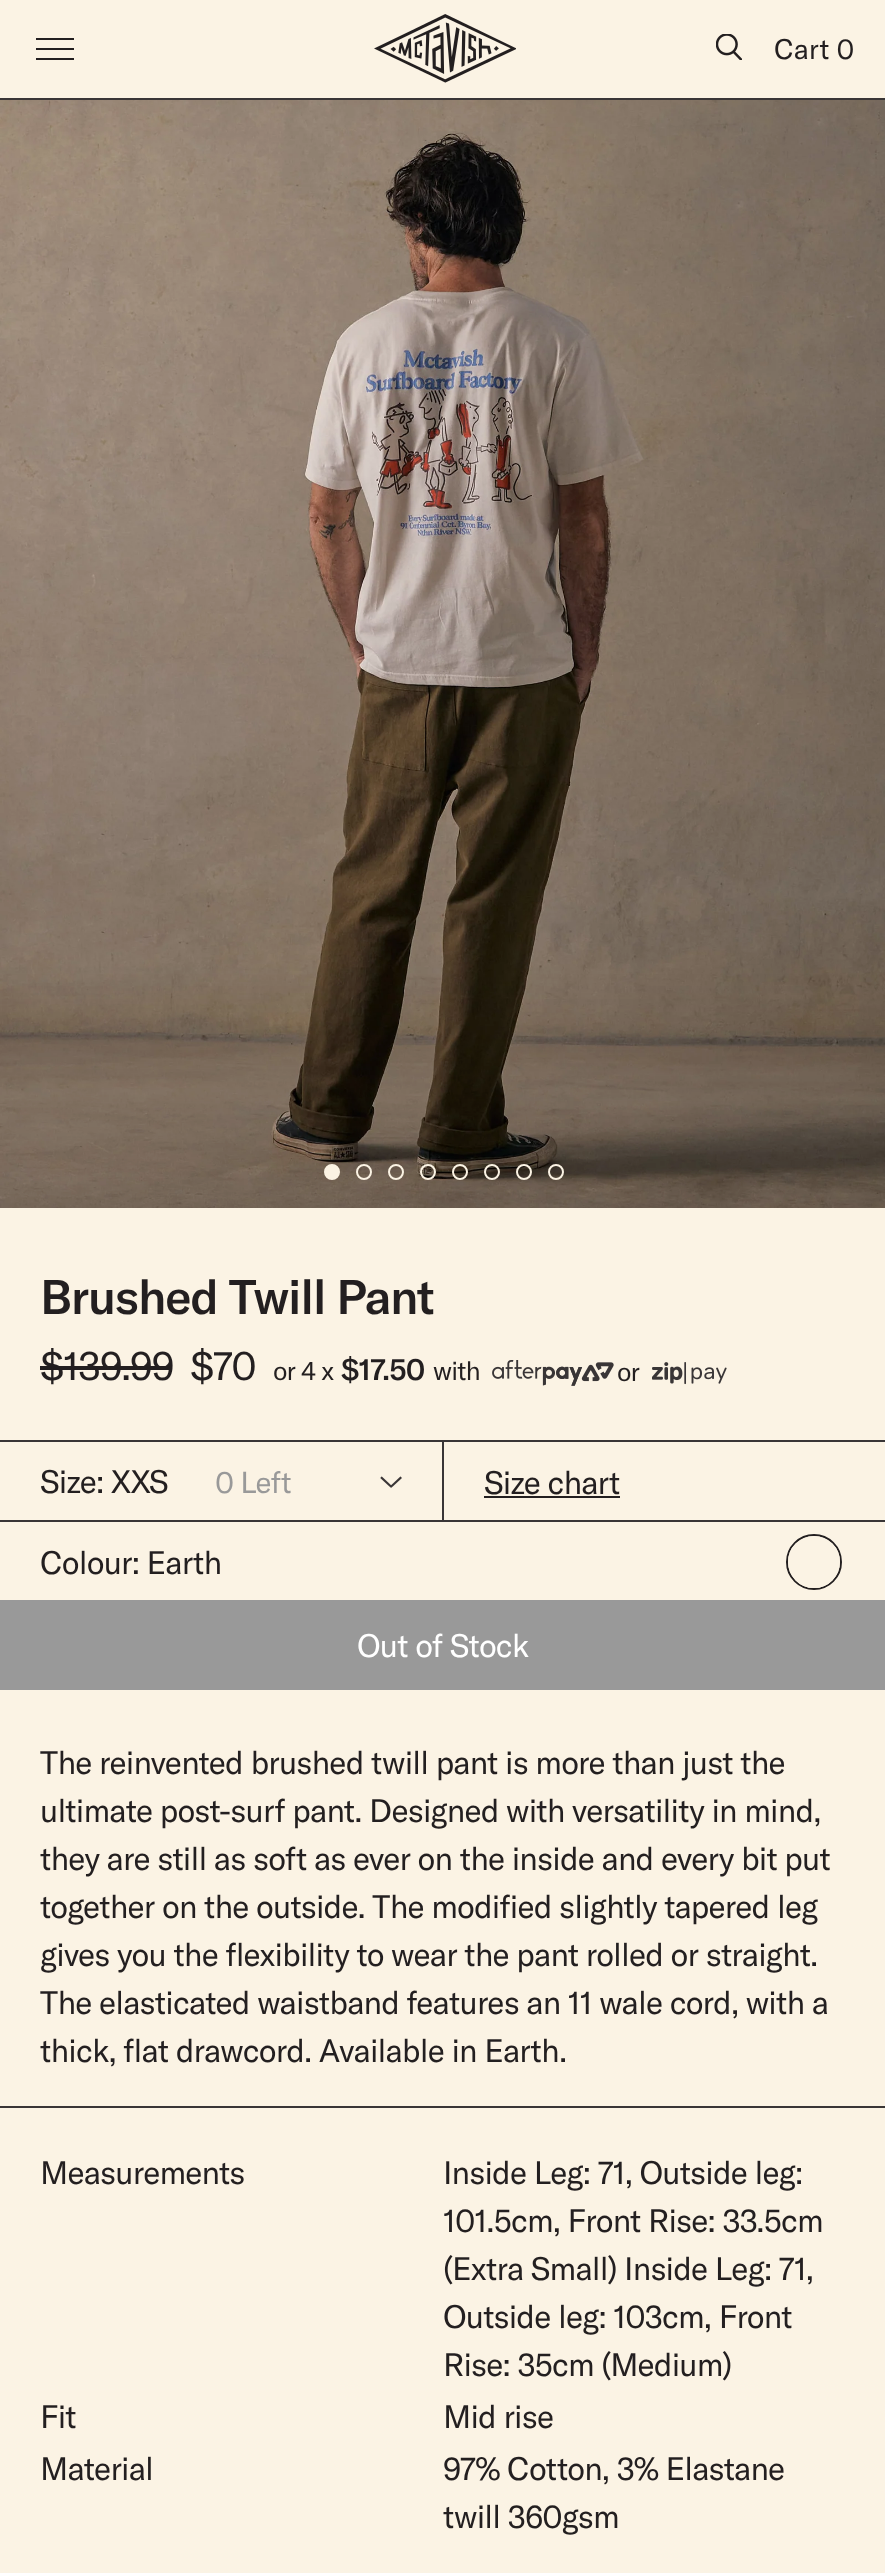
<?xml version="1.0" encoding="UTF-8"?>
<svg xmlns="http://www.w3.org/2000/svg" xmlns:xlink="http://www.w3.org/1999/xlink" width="885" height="2573">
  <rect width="100%" height="100%" fill="#fbf3e4" />
  <rect y="98" width="885" height="2" fill="#393536" />
  <rect x="36" y="38" width="38" height="2" fill="#231f20" />
  <rect x="36" y="48" width="38" height="2" fill="#231f20" />
  <rect x="36" y="58" width="38" height="2" fill="#231f20" />
  <image x="374" y="14" width="142" height="69" xlink:href="image1.png" />
  <image x="716" y="34" width="26" height="26" xlink:href="image2.png" />
  <image x="0" y="100" width="885" height="1108" xlink:href="image3.png" />
  <circle cx="332" cy="1172" r="7" fill="#fbf3e4" stroke="#fbf3e4" stroke-width="2" />
  <circle cx="364" cy="1172" r="7" fill="none" stroke="#fbf3e4" stroke-width="2" />
  <circle cx="396" cy="1172" r="7" fill="none" stroke="#fbf3e4" stroke-width="2" />
  <circle cx="428" cy="1172" r="7" fill="none" stroke="#fbf3e4" stroke-width="2" />
  <circle cx="460" cy="1172" r="7" fill="none" stroke="#fbf3e4" stroke-width="2" />
  <circle cx="492" cy="1172" r="7" fill="none" stroke="#fbf3e4" stroke-width="2" />
  <circle cx="524" cy="1172" r="7" fill="none" stroke="#fbf3e4" stroke-width="2" />
  <circle cx="556" cy="1172" r="7" fill="none" stroke="#fbf3e4" stroke-width="2" />
  <rect x="40" y="1366" width="132" height="4" fill="#231f20" />
  <image x="492" y="1360" width="122" height="26" xlink:href="image4.png" />
  <image x="652" y="1362" width="75" height="23" xlink:href="image5.png" />
  <image x="380" y="1476" width="22" height="12" xlink:href="image6.png" />
  <rect y="1440" width="885" height="2" fill="#393536" />
  <rect x="442" y="1440" width="2" height="80" fill="#393536" />
  <rect x="484" y="1496" width="136" height="2" fill="#231f20" />
  <rect y="1520" width="885" height="2" fill="#393536" />
  <circle cx="814" cy="1562" r="27" fill="none" stroke="#231f20" stroke-width="2" />
  <circle cx="814" cy="1562" r="24" fill="none" stroke="#fbf3e4" stroke-width="4" />
  <rect y="1600" width="885" height="90" fill="#999999" />
  <rect y="2106" width="885" height="2" fill="#393536" />
  <text x="774" y="59" style="font-family: GT America; font-size: 28px; fill: #231f20">Cart 0</text>
  <text x="40" y="1314" style="font-family: GT America; font-size: 48px; font-weight: 500; letter-spacing: -1.3px; fill: #231f20">Brushed Twill Pant</text>
  <text x="40" y="1380" style="font-family: GT America; font-size: 40px; letter-spacing: -1px; fill: #231f20">$139.99</text>
  <text x="190" y="1380" style="font-family: GT America; font-size: 40px; letter-spacing: -1px; fill: #231f20">$70</text>
  <text x="273" y="1380" style="font-family: GT America; font-size: 26px; letter-spacing: -0.85px; fill: #231f20">or 4 x</text>
  <text x="341" y="1380" style="font-family: GT America; font-size: 30px; font-weight: 500; letter-spacing: -0.85px; fill: #231f20">$17.50</text>
  <text x="433" y="1380" style="font-family: GT America; font-size: 26px; letter-spacing: -0.85px; fill: #231f20">with</text>
  <text x="617" y="1381" style="font-family: GT America; font-size: 26px; letter-spacing: -0.85px; fill: #231f20">or</text>
  <text x="40" y="1493" style="font-family: GT America; font-size: 32px; letter-spacing: -0.85px; fill: #231f20">Size: XXS</text>
  <text x="215" y="1493" style="font-family: GT America; font-size: 30px; letter-spacing: -0.85px; fill: #999999">0 Left</text>
  <text x="484" y="1494" style="font-family: GT America; font-size: 32px; letter-spacing: -0.85px; fill: #231f20">Size chart</text>
  <text x="40" y="1574" style="font-family: GT America; font-size: 32px; letter-spacing: -0.85px; fill: #231f20">Colour: Earth</text>
  <text x="357" y="1657" style="font-family: GT America; font-size: 32px; letter-spacing: -0.85px; fill: #ffffff">Out of Stock</text>
  <text x="40" y="1774" style="font-family: GT America; font-size: 32px; letter-spacing: -0.85px; fill: #231f20">The reinvented brushed twill pant is more than just the</text>
  <text x="40" y="1822" style="font-family: GT America; font-size: 32px; letter-spacing: -0.85px; fill: #231f20">ultimate post-surf pant. Designed with versatility in mind,</text>
  <text x="40" y="1870" style="font-family: GT America; font-size: 32px; letter-spacing: -0.85px; fill: #231f20">they are still as soft as ever on the inside and every bit put</text>
  <text x="40" y="1918" style="font-family: GT America; font-size: 32px; letter-spacing: -0.85px; fill: #231f20">together on the outside. The modified slightly tapered leg</text>
  <text x="40" y="1966" style="font-family: GT America; font-size: 32px; letter-spacing: -0.85px; fill: #231f20">gives you the flexibility to wear the pant rolled or straight.</text>
  <text x="40" y="2014" style="font-family: GT America; font-size: 32px; letter-spacing: -0.85px; fill: #231f20">The elasticated waistband features an 11 wale cord, with a</text>
  <text x="40" y="2062" style="font-family: GT America; font-size: 32px; letter-spacing: -0.85px; fill: #231f20">thick, flat drawcord. Available in Earth.</text>
  <text x="40" y="2184" style="font-family: GT America; font-size: 32px; letter-spacing: -0.85px; fill: #231f20">Measurements</text>
  <text x="443" y="2184" style="font-family: GT America; font-size: 32px; letter-spacing: -0.85px; fill: #231f20">Inside Leg: 71, Outside leg:</text>
  <text x="443" y="2232" style="font-family: GT America; font-size: 32px; letter-spacing: -0.85px; fill: #231f20">101.5cm, Front Rise: 33.5cm</text>
  <text x="443" y="2280" style="font-family: GT America; font-size: 32px; letter-spacing: -0.85px; fill: #231f20">(Extra Small) Inside Leg: 71,</text>
  <text x="443" y="2328" style="font-family: GT America; font-size: 32px; letter-spacing: -0.85px; fill: #231f20">Outside leg: 103cm, Front</text>
  <text x="443" y="2376" style="font-family: GT America; font-size: 32px; letter-spacing: -0.85px; fill: #231f20">Rise: 35cm (Medium)</text>
  <text x="40" y="2428" style="font-family: GT America; font-size: 32px; letter-spacing: -0.85px; fill: #231f20">Fit</text>
  <text x="443" y="2428" style="font-family: GT America; font-size: 32px; letter-spacing: -0.85px; fill: #231f20">Mid rise</text>
  <text x="40" y="2480" style="font-family: GT America; font-size: 32px; letter-spacing: -0.85px; fill: #231f20">Material</text>
  <text x="443" y="2480" style="font-family: GT America; font-size: 32px; letter-spacing: -0.85px; fill: #231f20">97% Cotton, 3% Elastane</text>
  <text x="443" y="2528" style="font-family: GT America; font-size: 32px; letter-spacing: -0.85px; fill: #231f20">twill 360gsm</text>
</svg>
